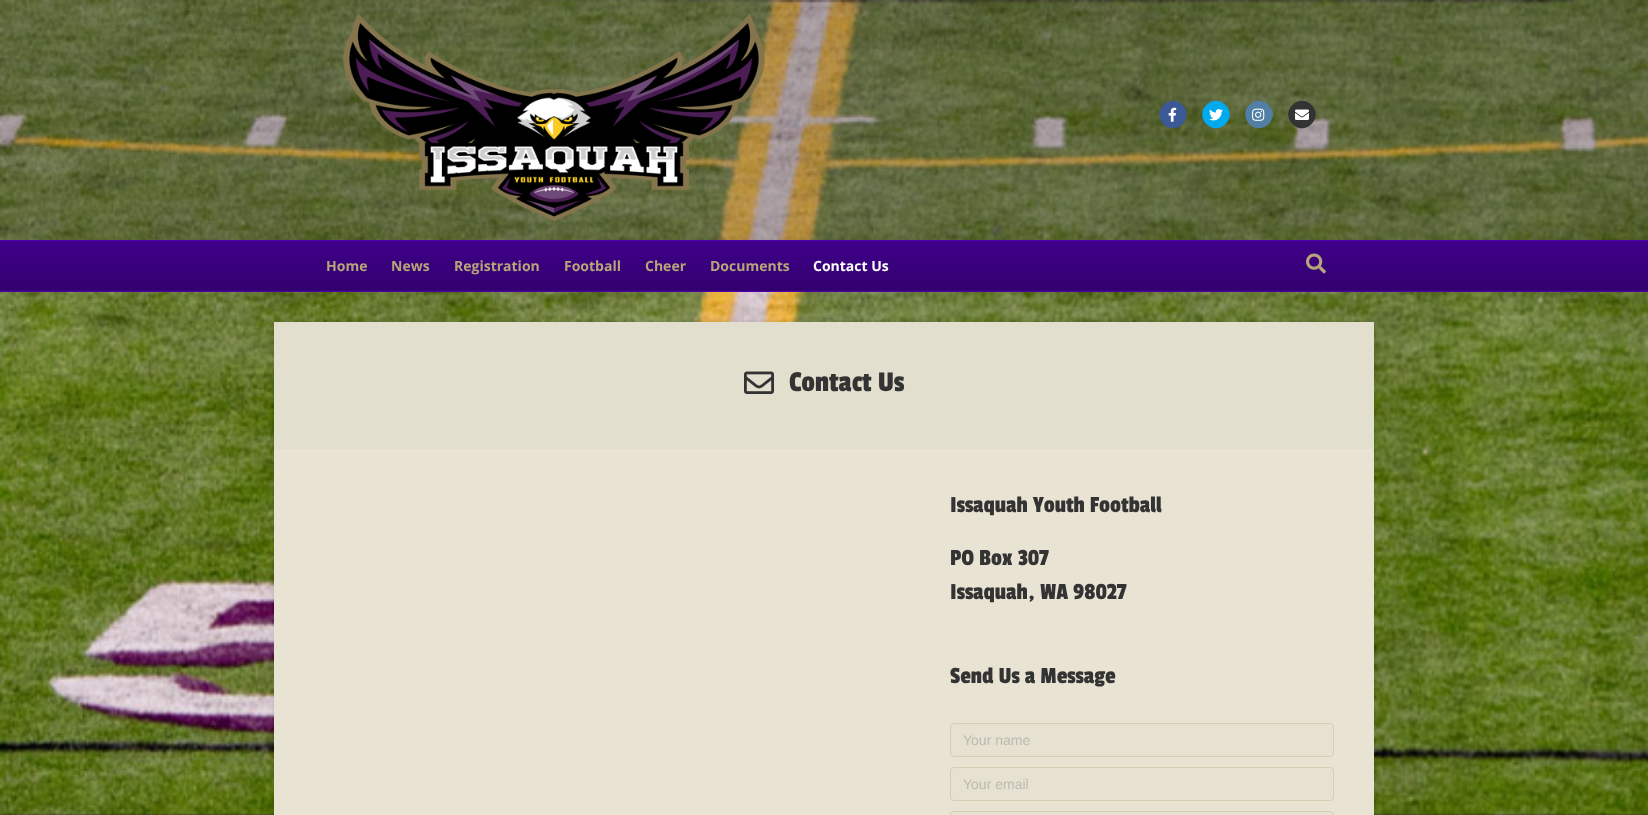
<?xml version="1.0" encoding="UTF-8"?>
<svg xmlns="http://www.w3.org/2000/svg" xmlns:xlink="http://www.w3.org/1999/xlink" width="1648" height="815">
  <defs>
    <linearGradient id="g1" gradientUnits="userSpaceOnUse" x1="824" y1="241" x2="824" y2="291"><stop offset="0" stop-color="#3f0089" /><stop offset="1" stop-color="#33006f" /></linearGradient>
  </defs>
  <rect width="100%" height="100%" fill="#262626" />
  <image x="0" y="0" width="1648" height="815" xlink:href="image1.png" />
  <image x="343" y="13" width="422" height="208" xlink:href="image2.png" />
  <path d="M 1163.5 105 c 12.5 -13 32 6.5 19 19 c -12.5 13 -32 -6.5 -19 -19 z" fill="#3b5997" />
  <image x="1168" y="107" width="9" height="15" xlink:href="image3.png" />
  <path d="M 1206.5 105 c 12.5 -13 32 6.5 19 19 c -12.5 13 -32 -6.5 -19 -19 z" fill="#00aaef" />
  <image x="1209" y="109" width="14" height="12" xlink:href="image4.png" />
  <path d="M 1249.5 105 c 12.5 -13 32 6.5 19 19 c -12.5 13 -32 -6.5 -19 -19 z" fill="#517fa5" />
  <image x="1252" y="108" width="13" height="13" xlink:href="image5.png" />
  <path d="M 1292.5 105 c 12.5 -13 32 6.5 19 19 c -12.5 13 -32 -6.5 -19 -19 z" fill="#333333" />
  <image x="1295" y="109" width="14" height="11" xlink:href="image6.png" />
  <rect y="241" width="1648" height="50" fill="url(#g1)" />
  <rect y="240" width="1648" height="1" fill="#5100b1" />
  <rect y="291" width="1648" height="1" fill="#5100b1" />
  <image x="1306" y="253" width="20" height="21" xlink:href="image7.png" />
  <rect x="274" y="322" width="1100" height="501" fill="#000000" fill-opacity="0.15" filter="blur(2.5px)" />
  <rect x="274" y="449" width="1100" height="366" fill="#e8e3d3" />
  <rect x="274" y="322" width="1100" height="127" fill="#e3dfcf" />
  <image x="744" y="371" width="30" height="23" xlink:href="image8.png" />
  <rect x="950.5" y="723.5" width="383" height="33" rx="3.5" fill="#e6e1d0" stroke="#d6ceb2" />
  <rect x="950.5" y="767.5" width="383" height="33" rx="3.5" fill="#e6e1d0" stroke="#d6ceb2" />
  <rect x="950.5" y="811.5" width="383" height="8" rx="3.5" fill="#e6e1d0" stroke="#d6ceb2" />
  <text x="326" y="271" style="font-family: Open Sans; font-size: 14px; font-weight: bold; fill: #b7a57a">Home</text>
  <text x="391" y="271" style="font-family: Open Sans; font-size: 14px; font-weight: bold; fill: #b7a57a">News</text>
  <text x="454" y="271" style="font-family: Open Sans; font-size: 14px; font-weight: bold; fill: #b7a57a">Registration</text>
  <text x="564" y="271" style="font-family: Open Sans; font-size: 14px; font-weight: bold; fill: #b7a57a">Football</text>
  <text x="645" y="271" style="font-family: Open Sans; font-size: 14px; font-weight: bold; fill: #b7a57a">Cheer</text>
  <text x="710" y="271" style="font-family: Open Sans; font-size: 14px; font-weight: bold; fill: #b7a57a">Documents</text>
  <text x="813" y="271" style="font-family: Open Sans; font-size: 14px; font-weight: bold; fill: #ffffff">Contact Us</text>
  <text x="789" y="391" style="font-family: Passion One; font-size: 30px; fill: #333333">Contact Us</text>
  <text x="950" y="512" style="font-family: Passion One; font-size: 24px; fill: #333333">Issaquah Youth Football</text>
  <text x="950" y="565" style="font-family: Passion One; font-size: 24px; fill: #333333">PO Box 307</text>
  <text x="950" y="599" style="font-family: Passion One; font-size: 24px; fill: #333333">Issaquah, WA 98027</text>
  <text x="950" y="683" style="font-family: Passion One; font-size: 24px; fill: #333333">Send Us a Message</text>
  <text x="963" y="745" style="font-family: Liberation Sans; font-size: 14px; fill: #bdbab0">Your name</text>
  <text x="963" y="789" style="font-family: Liberation Sans; font-size: 14px; fill: #bdbab0">Your email</text>
</svg>
